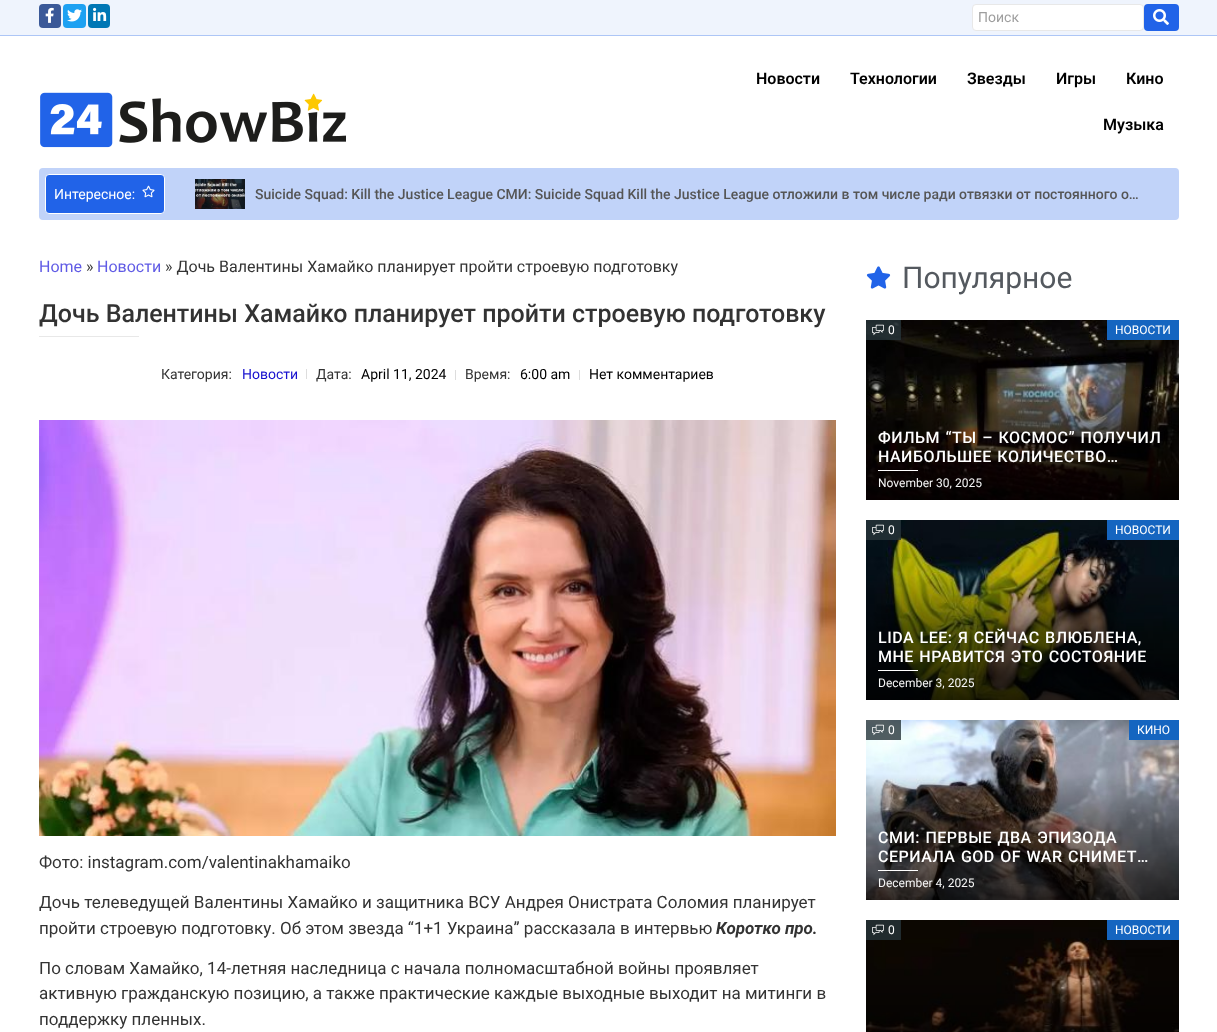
<?xml version="1.0" encoding="UTF-8"?>
<svg xmlns="http://www.w3.org/2000/svg" xmlns:xlink="http://www.w3.org/1999/xlink" width="1217" height="1032">
  <rect width="100%" height="100%" fill="#ffffff" />
  <rect width="1217" height="35" fill="#eff4fd" />
  <rect y="35" width="1217" height="1" fill="#adc6f6" />
  <rect x="39" y="4" width="22" height="24" rx="4" fill="#3b5998" />
  <image x="45" y="7" width="9" height="16" xlink:href="image1.png" />
  <rect x="63" y="4" width="23" height="24" rx="4" fill="#1da1f2" />
  <image x="67" y="9" width="15" height="13" xlink:href="image2.png" />
  <rect x="88" y="4" width="22" height="24" rx="4" fill="#0077b5" />
  <image x="93" y="7" width="14" height="14" xlink:href="image3.png" />
  <rect x="972.5" y="4.5" width="171" height="26" rx="3.5" fill="#ffffff" stroke="#e8e8e8" />
  <rect x="1144" y="4" width="35" height="27" rx="4" fill="#2163e8" />
  <image x="1153" y="9" width="16" height="16" xlink:href="image4.png" />
  <image x="40" y="92" width="306" height="56" xlink:href="image5.png" />
  <rect x="39" y="168" width="1140" height="52" rx="4" fill="#c1d3f9" />
  <rect x="45.5" y="174.5" width="119" height="39" rx="3.5" fill="#2163e8" stroke="#ffffff" />
  <image x="142" y="185" width="13" height="13" xlink:href="image6.png" />
  <image x="195" y="179" width="50" height="30" xlink:href="image7.png" />
  <rect x="39" y="336" width="100" height="1" fill="#e8e8e8" />
  <rect x="306" y="369" width="1" height="10" fill="#dddddd" />
  <rect x="455" y="370" width="1" height="10" fill="#dddddd" />
  <rect x="579" y="370" width="1" height="10" fill="#dddddd" />
  <image x="39" y="420" width="797" height="416" xlink:href="image8.png" />
  <image x="866" y="266" width="25" height="23" xlink:href="image9.png" />
  <image x="866" y="320" width="313" height="180" xlink:href="image10.png" />
  <rect x="866" y="320" width="35" height="20" fill="#27343a" fill-opacity="0.8" />
  <image x="872" y="324" width="12" height="12" xlink:href="image11.png" />
  <rect x="1107" y="320" width="72" height="20" fill="#1565c0" />
  <rect x="878" y="470" width="40" height="1" fill="#ffffff" />
  <image x="866" y="520" width="313" height="180" xlink:href="image12.png" />
  <rect x="866" y="520" width="35" height="20" fill="#27343a" fill-opacity="0.8" />
  <image x="872" y="524" width="12" height="12" xlink:href="image13.png" />
  <rect x="1107" y="520" width="72" height="20" fill="#1565c0" />
  <rect x="878" y="670" width="40" height="1" fill="#ffffff" />
  <image x="866" y="720" width="313" height="180" xlink:href="image14.png" />
  <rect x="866" y="720" width="35" height="20" fill="#27343a" fill-opacity="0.8" />
  <image x="872" y="724" width="12" height="12" xlink:href="image15.png" />
  <rect x="1129" y="720" width="50" height="20" fill="#1565c0" />
  <rect x="878" y="870" width="40" height="1" fill="#ffffff" />
  <image x="866" y="920" width="313" height="112" xlink:href="image16.png" />
  <rect x="866" y="920" width="35" height="20" fill="#27343a" fill-opacity="0.8" />
  <image x="872" y="924" width="12" height="12" xlink:href="image17.png" />
  <rect x="1107" y="920" width="72" height="20" fill="#1565c0" />
  <text x="978" y="22" style="font-family: Roboto; font-size: 14px; fill: #9e9e9e">Поиск</text>
  <text x="756" y="84" style="font-family: Roboto; font-size: 16px; font-weight: 600; fill: #000000">Новости</text>
  <text x="850" y="84" style="font-family: Roboto; font-size: 16px; font-weight: 600; fill: #000000">Технологии</text>
  <text x="967" y="84" style="font-family: Roboto; font-size: 16px; font-weight: 600; fill: #000000">Звезды</text>
  <text x="1056" y="84" style="font-family: Roboto; font-size: 16px; font-weight: 600; fill: #000000">Игры</text>
  <text x="1126" y="84" style="font-family: Roboto; font-size: 16px; font-weight: 600; fill: #000000">Кино</text>
  <text x="1103" y="130" style="font-family: Roboto; font-size: 16px; font-weight: 600; fill: #000000">Музыка</text>
  <text x="54" y="199" style="font-family: Roboto; font-size: 14px; fill: #ffffff">Интересное:</text>
  <text x="255" y="199" style="font-family: Roboto; font-size: 14px; font-weight: 500; fill: #555555">Suicide Squad: Kill the Justice League СМИ: Suicide Squad Kill the Justice League отложили в том числе ради отвязки от постоянного о…</text>
  <text x="39" y="272" style="font-family: Roboto; font-size: 16px; fill: #605be5">Home</text>
  <text x="86" y="272" style="font-family: Roboto; font-size: 16px; fill: #333333">»</text>
  <text x="97" y="272" style="font-family: Roboto; font-size: 16px; fill: #605be5">Новости</text>
  <text x="165" y="272" style="font-family: Roboto; font-size: 16px; fill: #333333">» Дочь Валентины Хамайко планирует пройти строевую подготовку</text>
  <text x="39" y="322" style="font-family: Roboto; font-size: 25px; font-weight: 500; fill: #333333">Дочь Валентины Хамайко планирует пройти строевую подготовку</text>
  <text x="161" y="379" style="font-family: Roboto; font-size: 14px; fill: #333333">Категория:</text>
  <text x="242" y="379" style="font-family: Roboto; font-size: 14px; fill: #1811cf">Новости</text>
  <text x="316" y="379" style="font-family: Roboto; font-size: 14px; fill: #333333">Дата:</text>
  <text x="361" y="379" style="font-family: Roboto; font-size: 14px; fill: #000000">April 11, 2024</text>
  <text x="465" y="379" style="font-family: Roboto; font-size: 14px; fill: #333333">Время:</text>
  <text x="520" y="379" style="font-family: Roboto; font-size: 14px; fill: #000000">6:00 am</text>
  <text x="589" y="379" style="font-family: Roboto; font-size: 14px; fill: #000000">Нет комментариев</text>
  <text x="39" y="868" style="font-family: Roboto; font-size: 17px; fill: #333333">Фото: instagram.com/valentinakhamaiko</text>
  <text x="39" y="908" style="font-family: Roboto; font-size: 17px; fill: #333333">Дочь телеведущей Валентины Хамайко и защитника ВСУ Андрея Онистрата Соломия планирует</text>
  <text x="39" y="934" style="font-family: Roboto; font-size: 17px; fill: #333333">пройти строевую подготовку. Об этом звезда “1+1 Украина” рассказала в интервью</text>
  <text x="716" y="934" style="font-family: Roboto; font-size: 17px; font-weight: bold; font-style: italic; fill: #333333">Коротко про.</text>
  <text x="39" y="974" style="font-family: Roboto; font-size: 17px; fill: #333333">По словам Хамайко, 14-летняя наследница с начала полномасштабной войны проявляет</text>
  <text x="39" y="999" style="font-family: Roboto; font-size: 17px; fill: #333333">активную гражданскую позицию, а также практические каждые выходные выходит на митинги в</text>
  <text x="39" y="1025" style="font-family: Roboto; font-size: 17px; fill: #333333">поддержку пленных.</text>
  <text x="902" y="288" style="font-family: Roboto; font-size: 30px; fill: #54595f">Популярное</text>
  <text x="888" y="334" style="font-family: Roboto; font-size: 12px; fill: #ffffff">0</text>
  <text x="1115" y="334" style="font-family: Roboto; font-size: 12px; fill: #ffffff">НОВОСТИ</text>
  <text x="878" y="443" word-spacing="1" style="font-family: Roboto; font-size: 16px; font-weight: 500; letter-spacing: 0.5px; fill: #ffffff">ФИЛЬМ “ТЫ – КОСМОС” ПОЛУЧИЛ</text>
  <text x="878" y="462" word-spacing="1" style="font-family: Roboto; font-size: 16px; font-weight: 500; letter-spacing: 0.5px; fill: #ffffff">НАИБОЛЬШЕЕ КОЛИЧЕСТВО…</text>
  <text x="878" y="487" style="font-family: Roboto; font-size: 12px; fill: #f5f5f5">November 30, 2025</text>
  <text x="888" y="534" style="font-family: Roboto; font-size: 12px; fill: #ffffff">0</text>
  <text x="1115" y="534" style="font-family: Roboto; font-size: 12px; fill: #ffffff">НОВОСТИ</text>
  <text x="878" y="643" word-spacing="1" style="font-family: Roboto; font-size: 16px; font-weight: 500; letter-spacing: 0.5px; fill: #ffffff">LIDA LEE: Я СЕЙЧАС ВЛЮБЛЕНА,</text>
  <text x="878" y="662" word-spacing="1" style="font-family: Roboto; font-size: 16px; font-weight: 500; letter-spacing: 0.5px; fill: #ffffff">МНЕ НРАВИТСЯ ЭТО СОСТОЯНИЕ</text>
  <text x="878" y="687" style="font-family: Roboto; font-size: 12px; fill: #f5f5f5">December 3, 2025</text>
  <text x="888" y="734" style="font-family: Roboto; font-size: 12px; fill: #ffffff">0</text>
  <text x="1137" y="734" style="font-family: Roboto; font-size: 12px; fill: #ffffff">КИНО</text>
  <text x="878" y="843" word-spacing="1" style="font-family: Roboto; font-size: 16px; font-weight: 500; letter-spacing: 0.5px; fill: #ffffff">СМИ: ПЕРВЫЕ ДВА ЭПИЗОДА</text>
  <text x="878" y="862" word-spacing="1" style="font-family: Roboto; font-size: 16px; font-weight: 500; letter-spacing: 0.5px; fill: #ffffff">СЕРИАЛА GOD OF WAR СНИМЕТ…</text>
  <text x="878" y="887" style="font-family: Roboto; font-size: 12px; fill: #f5f5f5">December 4, 2025</text>
  <text x="888" y="934" style="font-family: Roboto; font-size: 12px; fill: #ffffff">0</text>
  <text x="1115" y="934" style="font-family: Roboto; font-size: 12px; fill: #ffffff">НОВОСТИ</text>
</svg>
